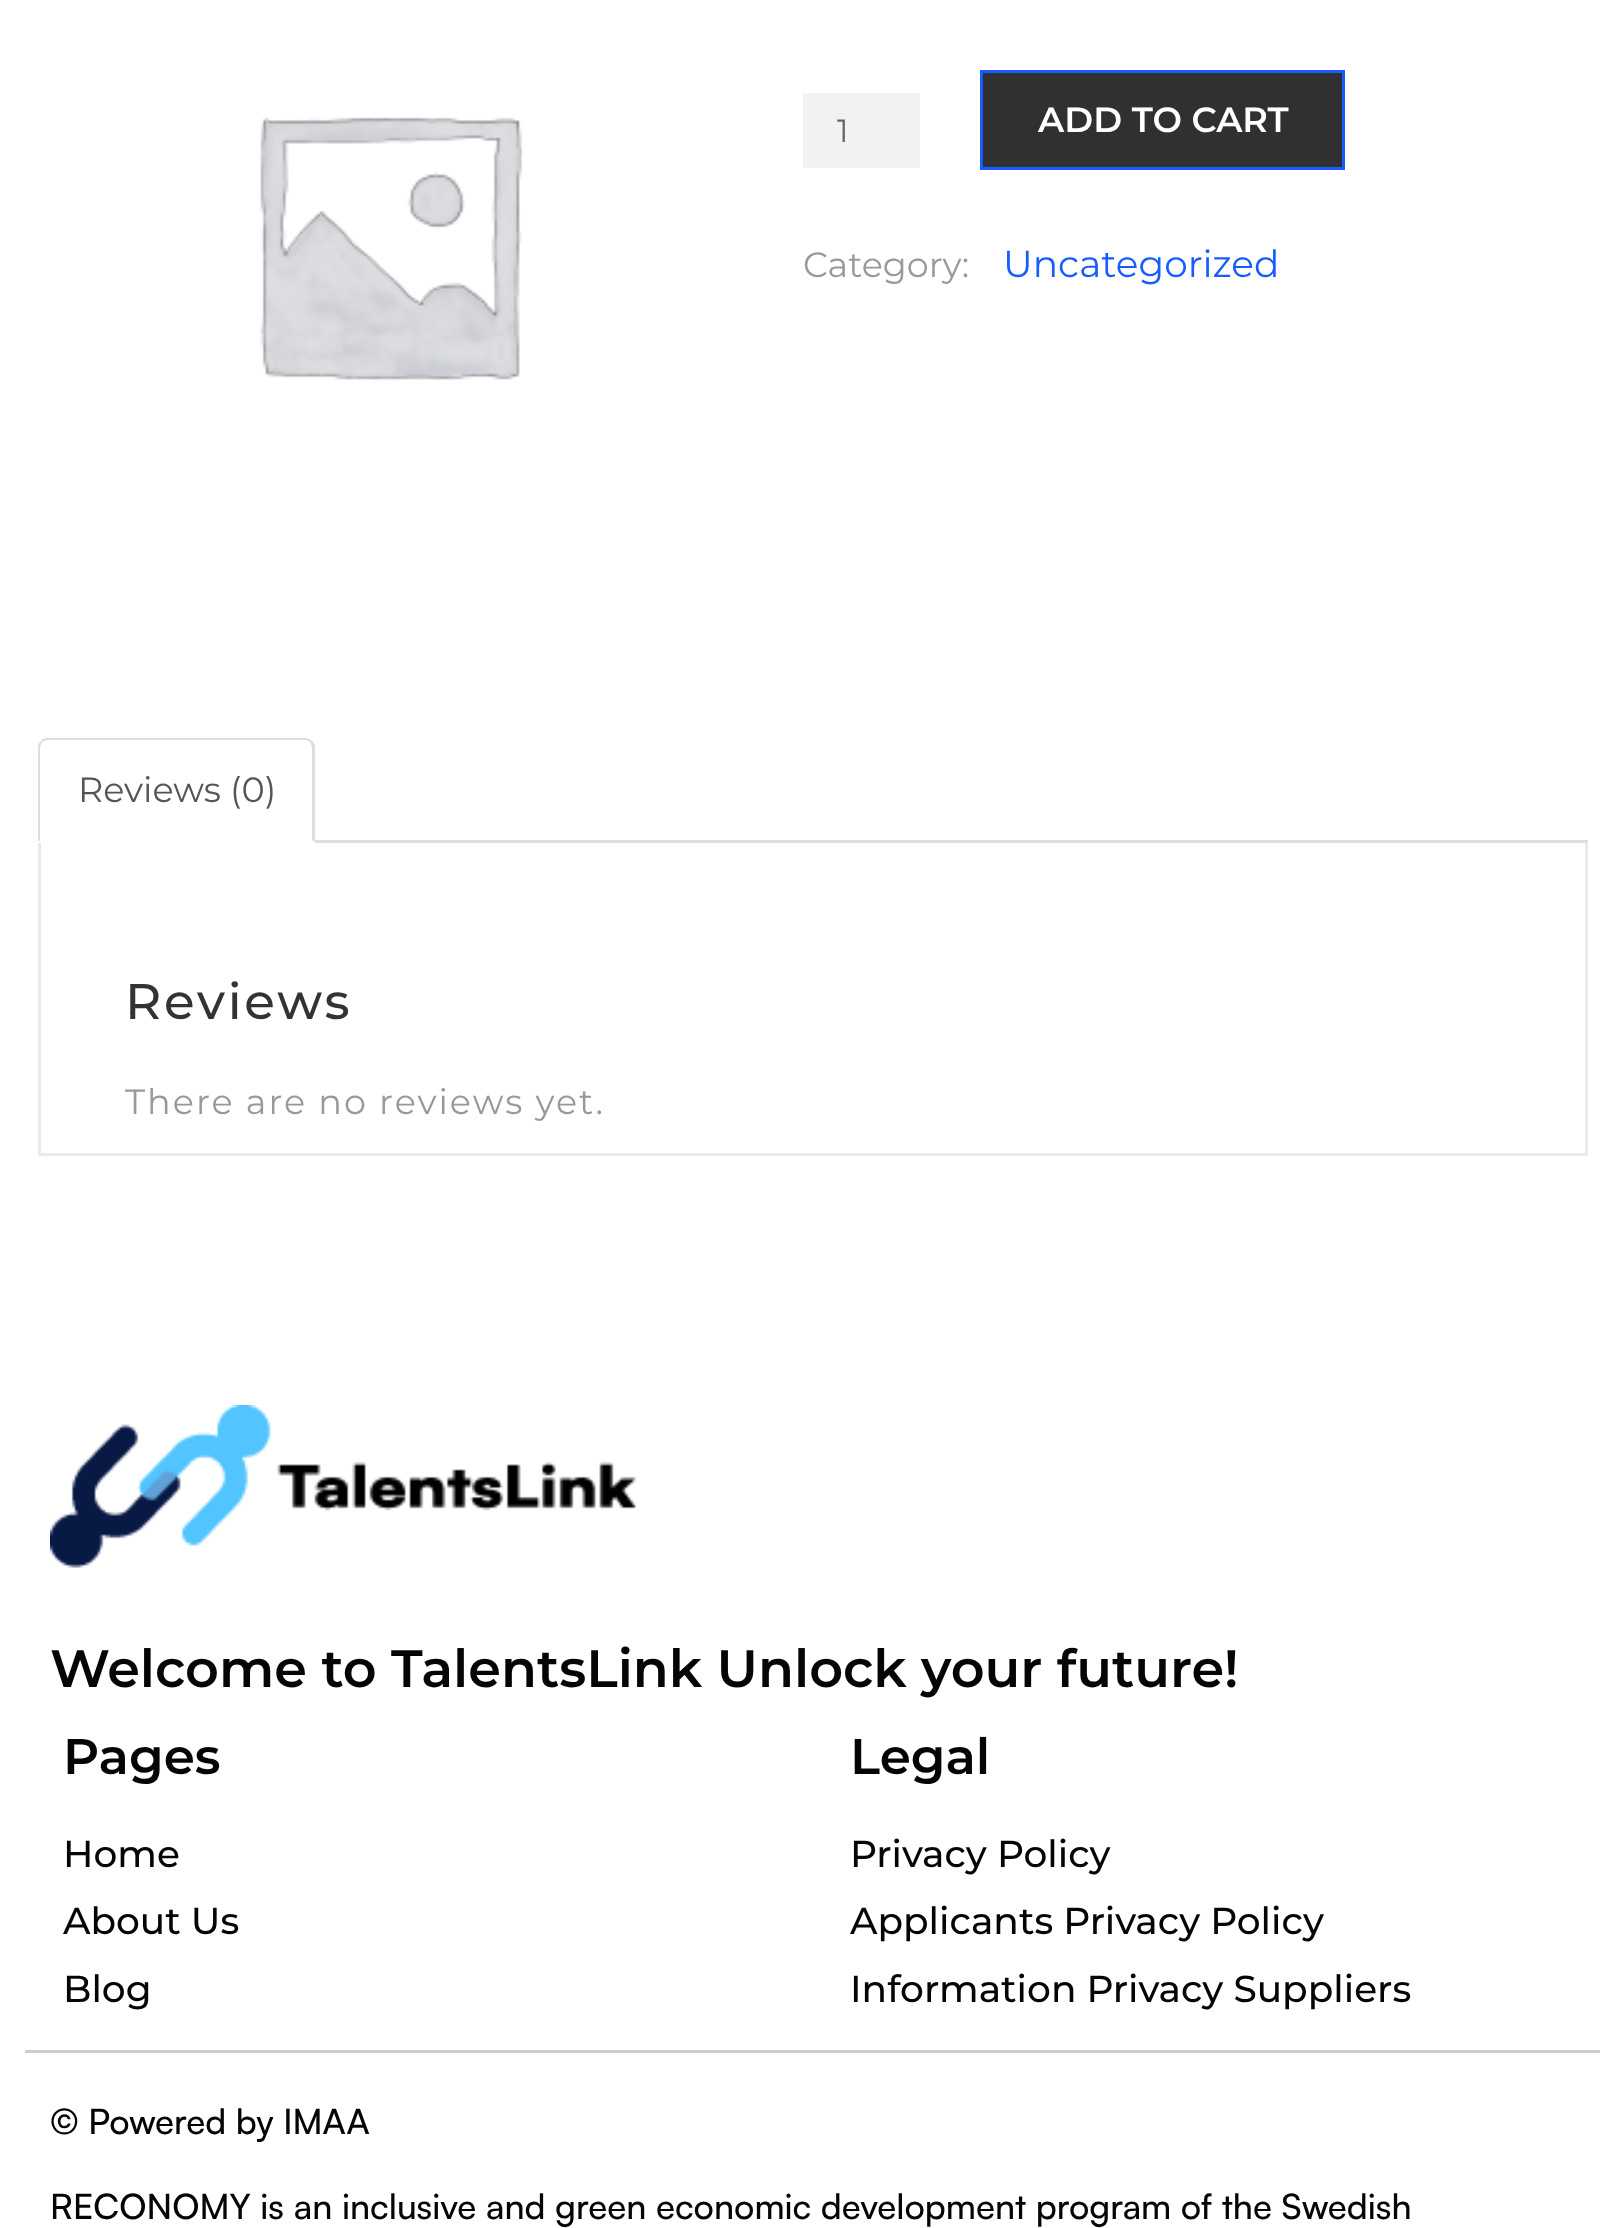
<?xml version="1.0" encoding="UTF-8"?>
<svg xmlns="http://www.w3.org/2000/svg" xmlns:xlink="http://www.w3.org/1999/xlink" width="1624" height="2228">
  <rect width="100%" height="100%" fill="#ffffff" />
  <image x="260" y="117" width="263" height="263" xlink:href="image1.png" />
  <rect x="803" y="93" width="117" height="75" fill="#f2f2f2" />
  <rect x="981.5" y="71.5" width="362" height="97" fill="#303032" stroke="#175cff" stroke-width="3" />
  <rect x="315" y="840" width="1273" height="3" fill="#dddddd" />
  <path d="M 48 738 c -3 0 -6 1 -7 3 l 1 1 c 2 -1 4 -2 6 -2 h 257 c 2 0 4 1 5 2 l 2 -1 c -2 -2 -4 -3 -7 -3 z" fill="#dddddd" />
  <path d="M 312 741 c 2 1 3 4 3 7 v 94 l -3 -2 v -92 c 0 -2 -1 -4 -2 -6 z" fill="#dddddd" />
  <path d="M 41 741 c -2 1 -3 4 -3 7 v 94 l 2 -2 v -92 c 0 -2 1 -4 2 -6 z" fill="#dddddd" />
  <rect x="1585" y="843" width="3" height="312" fill="#eaeaea" />
  <rect x="38" y="1153" width="1550" height="3" fill="#eaeaea" />
  <rect x="38" y="843" width="3" height="312" fill="#eaeaea" />
  <image x="50" y="1405" width="586" height="163" xlink:href="image2.png" />
  <rect x="25" y="2050" width="1575" height="3" fill="#cecece" />
  <text x="837" y="142" style="font-family: Montserrat; font-size: 32px; fill: #666666">1</text>
  <text x="1038" y="132" style="font-family: Montserrat; font-size: 35px; font-weight: 600; fill: #ffffff">ADD TO CART</text>
  <text x="803" y="277" style="font-family: Montserrat; font-size: 35px; fill: #999999">Category:</text>
  <text x="1003" y="277" style="font-family: Montserrat; font-size: 37.5px; fill: #175cff">Uncategorized</text>
  <text x="78" y="802" style="font-family: Montserrat; font-size: 35px; fill: #555555">Reviews (0)</text>
  <text x="125" y="1019" style="font-family: Montserrat; font-size: 50px; font-weight: 500; letter-spacing: 2.75px; fill: #333333">Reviews</text>
  <text x="125" y="1114" style="font-family: Montserrat; font-size: 35px; letter-spacing: 2px; fill: #999999">There are no reviews yet.</text>
  <text x="50" y="1687" style="font-family: Montserrat; font-size: 52.5px; font-weight: 600; fill: #040505">Welcome to TalentsLink Unlock your future!</text>
  <text x="63" y="1774" style="font-family: Montserrat; font-size: 50px; font-weight: 600; fill: #040505">Pages</text>
  <text x="63" y="1867" style="font-family: Montserrat; font-size: 37.5px; font-weight: 500; fill: #040505">Home</text>
  <text x="63" y="1934" style="font-family: Montserrat; font-size: 37.5px; font-weight: 500; fill: #040505">About Us</text>
  <text x="63" y="2002" style="font-family: Montserrat; font-size: 37.5px; font-weight: 500; fill: #040505">Blog</text>
  <text x="850" y="1774" style="font-family: Montserrat; font-size: 50px; font-weight: 600; fill: #040505">Legal</text>
  <text x="850" y="1867" style="font-family: Montserrat; font-size: 37.5px; font-weight: 500; fill: #040505">Privacy Policy</text>
  <text x="850" y="1934" style="font-family: Montserrat; font-size: 37.5px; font-weight: 500; fill: #040505">Applicants Privacy Policy</text>
  <text x="850" y="2002" style="font-family: Montserrat; font-size: 37.5px; font-weight: 500; fill: #040505">Information Privacy Suppliers</text>
  <text x="50" y="2134" style="font-family: Satoshi; font-size: 35px; font-weight: 500; fill: #040505">© Powered by IMAA</text>
  <text x="50" y="2219" style="font-family: Satoshi; font-size: 35px; font-weight: 500; fill: #040505">RECONOMY is an inclusive and green economic development program of the Swedish</text>
</svg>
